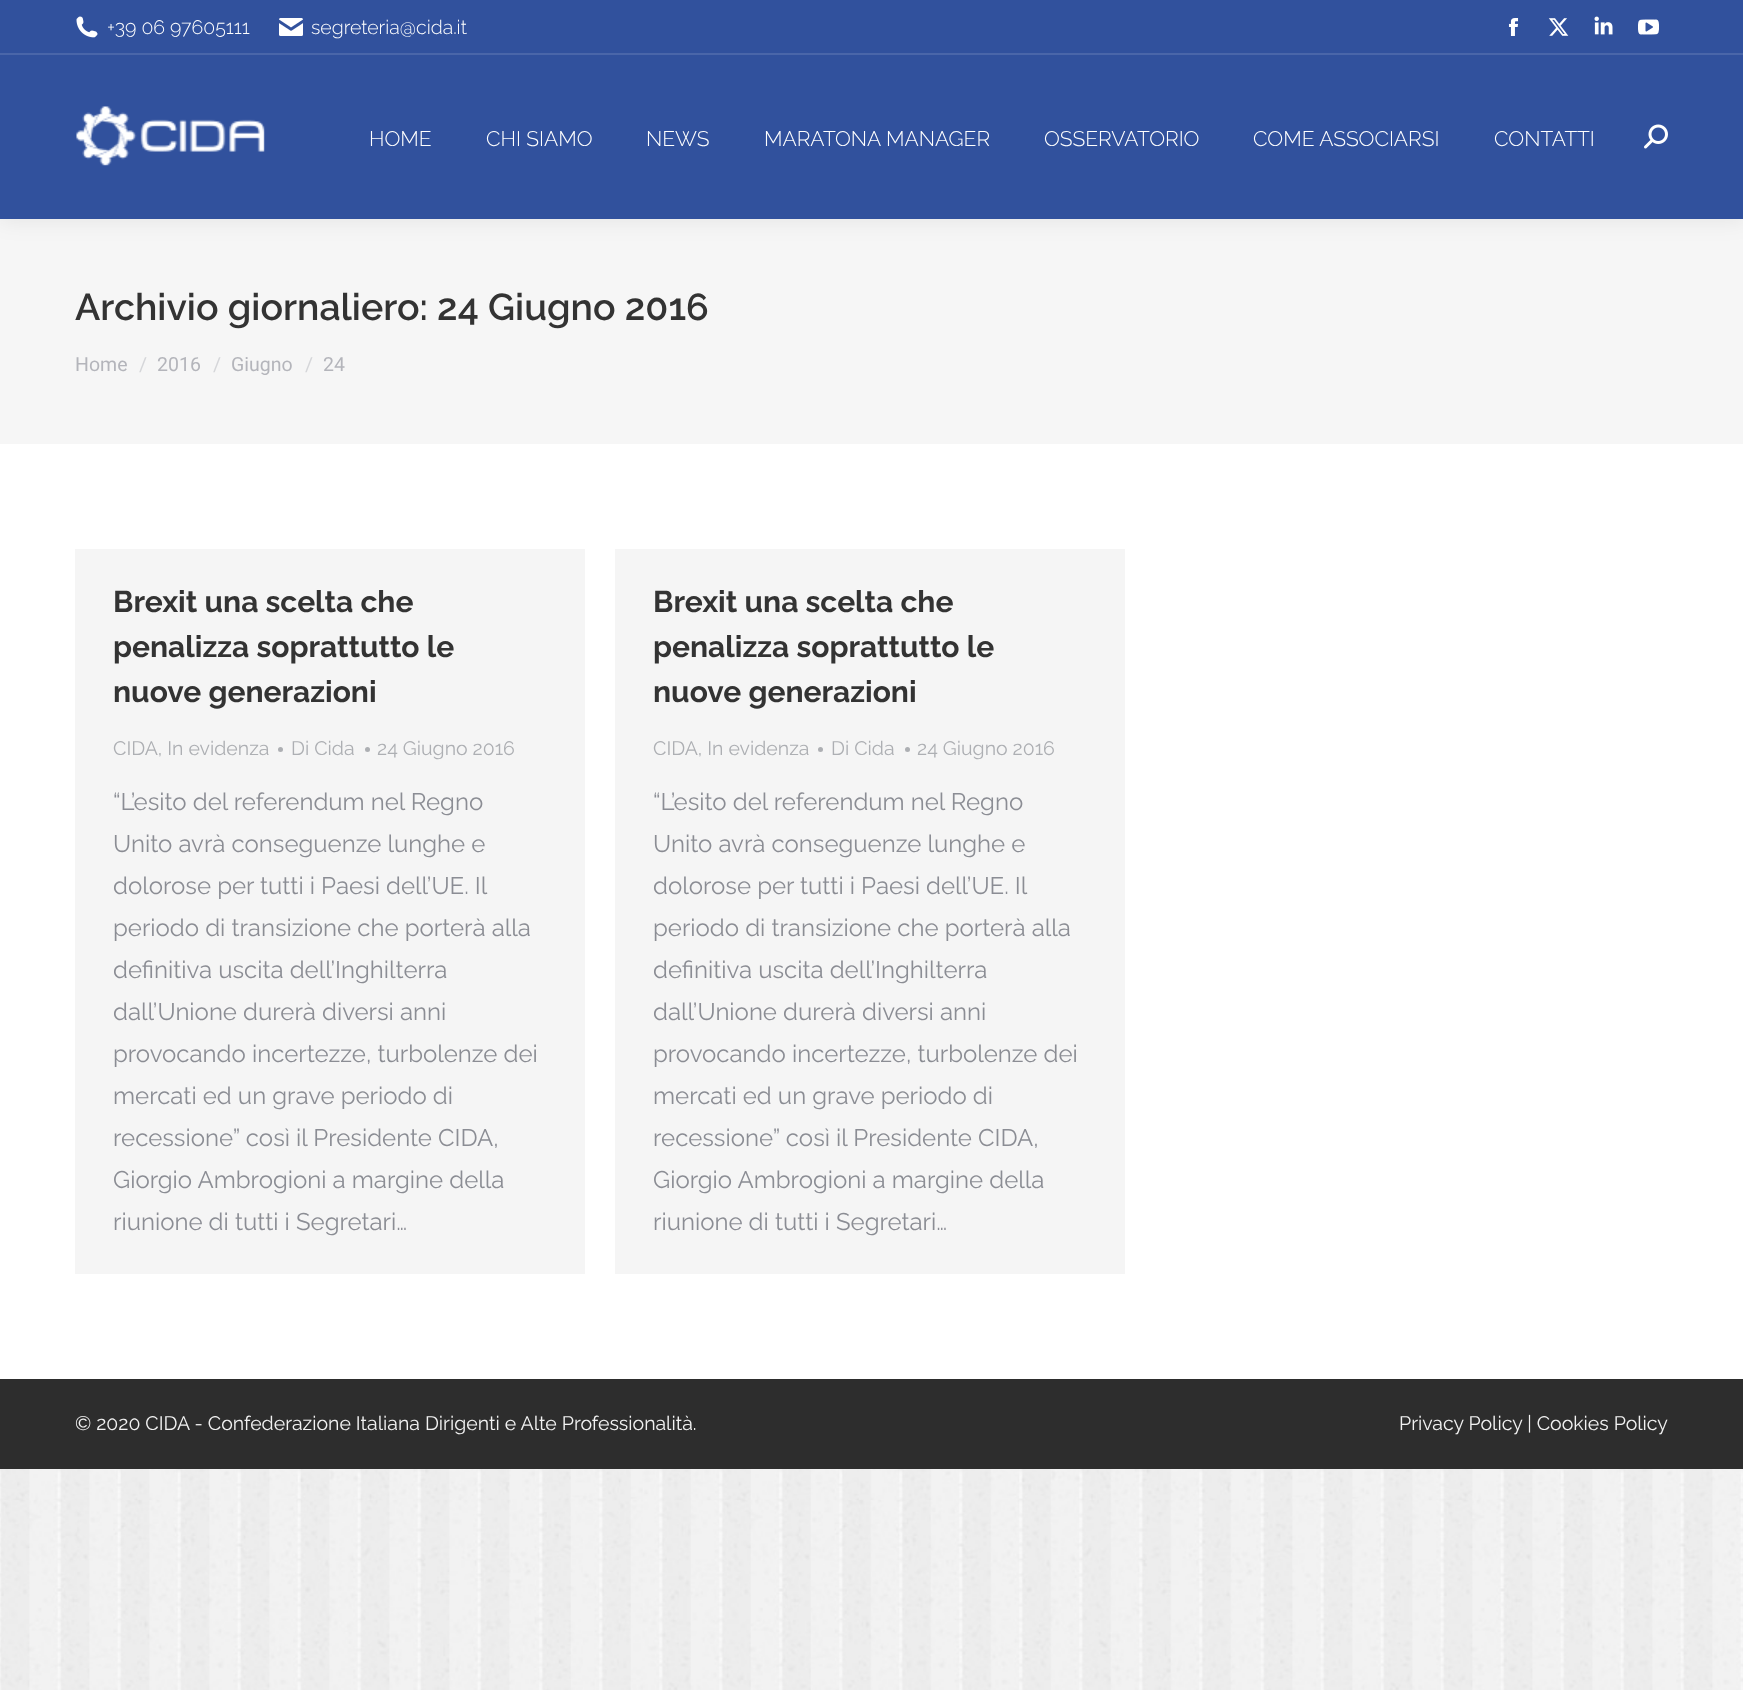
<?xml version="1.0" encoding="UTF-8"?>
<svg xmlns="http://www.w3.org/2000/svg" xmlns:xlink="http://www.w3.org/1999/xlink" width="1743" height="1690">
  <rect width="100%" height="100%" fill="#ffffff" />
  <image x="0" y="1469" width="1743" height="221" xlink:href="image1.png" />
  <rect y="219" width="1743" height="225" fill="#f6f6f6" />
  <rect x="-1" y="-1" width="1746" height="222" fill="#000000" fill-opacity="0.07" filter="blur(11px)" />
  <rect width="1743" height="219" fill="#31519d" />
  <image x="76" y="16" width="22" height="22" xlink:href="image2.png" />
  <image x="279" y="18" width="24" height="18" xlink:href="image3.png" />
  <image x="1508" y="18" width="11" height="18" xlink:href="image4.png" />
  <image x="1548" y="18" width="21" height="18" xlink:href="image5.png" />
  <image x="1594" y="16" width="19" height="19" xlink:href="image6.png" />
  <image x="1638" y="19" width="21" height="16" xlink:href="image7.png" />
  <rect y="53" width="1743" height="2" fill="#4a66a9" />
  <image x="76" y="106" width="189" height="60" xlink:href="image8.png" />
  <image x="1644" y="124" width="24" height="25" xlink:href="image9.png" />
  <rect x="75" y="549" width="510" height="725" fill="#f5f5f5" />
  <circle cx="280.5" cy="749.5" r="2.5" fill="#adafb3" />
  <circle cx="367.5" cy="749.5" r="2.5" fill="#adafb3" />
  <rect x="615" y="549" width="510" height="725" fill="#f5f5f5" />
  <circle cx="820.5" cy="749.5" r="2.5" fill="#adafb3" />
  <circle cx="907.5" cy="749.5" r="2.5" fill="#adafb3" />
  <rect y="1379" width="1743" height="90" fill="#2d2d2d" />
  <text x="107" y="34" style="font-family: Raleway; font-size: 19.5px; font-weight: 300; fill: #ffffff">+39 06 97605111</text>
  <text x="311" y="34" style="font-family: Raleway; font-size: 19.5px; font-weight: 300; fill: #ffffff">segreteria@cida.it</text>
  <text x="369" y="146" style="font-family: Raleway; font-size: 21px; font-weight: 300; fill: #ffffff">HOME</text>
  <text x="486" y="146" style="font-family: Raleway; font-size: 21px; font-weight: 300; fill: #ffffff">CHI SIAMO</text>
  <text x="646" y="146" style="font-family: Raleway; font-size: 21px; font-weight: 300; fill: #ffffff">NEWS</text>
  <text x="764" y="146" style="font-family: Raleway; font-size: 21px; font-weight: 300; fill: #ffffff">MARATONA MANAGER</text>
  <text x="1044" y="146" style="font-family: Raleway; font-size: 21px; font-weight: 300; fill: #ffffff">OSSERVATORIO</text>
  <text x="1253" y="146" style="font-family: Raleway; font-size: 21px; font-weight: 300; fill: #ffffff">COME ASSOCIARSI</text>
  <text x="1494" y="146" style="font-family: Raleway; font-size: 21px; font-weight: 300; fill: #ffffff">CONTATTI</text>
  <text x="75" y="320" style="font-family: Raleway; font-size: 37.5px; font-weight: 600; fill: #333333">Archivio giornaliero: 24 Giugno 2016</text>
  <text x="75" y="371" style="font-family: Roboto; font-size: 19.5px; fill: #b4b5bb">Home</text>
  <text x="139" y="371" style="font-family: Roboto; font-size: 19.5px; fill: #d5d6d9">/</text>
  <text x="157" y="371" style="font-family: Roboto; font-size: 19.5px; fill: #b4b5bb">2016</text>
  <text x="213" y="371" style="font-family: Roboto; font-size: 19.5px; fill: #d5d6d9">/</text>
  <text x="231" y="371" style="font-family: Roboto; font-size: 19.5px; fill: #b4b5bb">Giugno</text>
  <text x="305" y="371" style="font-family: Roboto; font-size: 19.5px; fill: #d5d6d9">/</text>
  <text x="323" y="371" style="font-family: Roboto; font-size: 19.5px; fill: #b4b5bb">24</text>
  <text x="113" y="612" style="font-family: Raleway; font-size: 30px; font-weight: bold; fill: #333333">Brexit una scelta che</text>
  <text x="113" y="657" style="font-family: Raleway; font-size: 30px; font-weight: bold; fill: #333333">penalizza soprattutto le</text>
  <text x="113" y="702" style="font-family: Raleway; font-size: 30px; font-weight: bold; fill: #333333">nuove generazioni</text>
  <text x="113" y="755" style="font-family: Raleway; font-size: 19.5px; fill: #adafb3">CIDA, In evidenza</text>
  <text x="291" y="755" style="font-family: Raleway; font-size: 19.5px; fill: #adafb3">Di Cida</text>
  <text x="377" y="755" style="font-family: Raleway; font-size: 19.5px; fill: #adafb3">24 Giugno 2016</text>
  <text x="113" y="810" style="font-family: Raleway; font-size: 24px; fill: #8b8d94">“L’esito del referendum nel Regno</text>
  <text x="113" y="852" style="font-family: Raleway; font-size: 24px; fill: #8b8d94">Unito avrà conseguenze lunghe e</text>
  <text x="113" y="894" style="font-family: Raleway; font-size: 24px; fill: #8b8d94">dolorose per tutti i Paesi dell’UE. Il</text>
  <text x="113" y="936" style="font-family: Raleway; font-size: 24px; fill: #8b8d94">periodo di transizione che porterà alla</text>
  <text x="113" y="978" style="font-family: Raleway; font-size: 24px; fill: #8b8d94">definitiva uscita dell’Inghilterra</text>
  <text x="113" y="1020" style="font-family: Raleway; font-size: 24px; fill: #8b8d94">dall’Unione durerà diversi anni</text>
  <text x="113" y="1062" style="font-family: Raleway; font-size: 24px; fill: #8b8d94">provocando incertezze, turbolenze dei</text>
  <text x="113" y="1104" style="font-family: Raleway; font-size: 24px; fill: #8b8d94">mercati ed un grave periodo di</text>
  <text x="113" y="1146" style="font-family: Raleway; font-size: 24px; fill: #8b8d94">recessione” così il Presidente CIDA,</text>
  <text x="113" y="1188" style="font-family: Raleway; font-size: 24px; fill: #8b8d94">Giorgio Ambrogioni a margine della</text>
  <text x="113" y="1230" style="font-family: Raleway; font-size: 24px; fill: #8b8d94">riunione di tutti i Segretari…</text>
  <text x="653" y="612" style="font-family: Raleway; font-size: 30px; font-weight: bold; fill: #333333">Brexit una scelta che</text>
  <text x="653" y="657" style="font-family: Raleway; font-size: 30px; font-weight: bold; fill: #333333">penalizza soprattutto le</text>
  <text x="653" y="702" style="font-family: Raleway; font-size: 30px; font-weight: bold; fill: #333333">nuove generazioni</text>
  <text x="653" y="755" style="font-family: Raleway; font-size: 19.5px; fill: #adafb3">CIDA, In evidenza</text>
  <text x="831" y="755" style="font-family: Raleway; font-size: 19.5px; fill: #adafb3">Di Cida</text>
  <text x="917" y="755" style="font-family: Raleway; font-size: 19.5px; fill: #adafb3">24 Giugno 2016</text>
  <text x="653" y="810" style="font-family: Raleway; font-size: 24px; fill: #8b8d94">“L’esito del referendum nel Regno</text>
  <text x="653" y="852" style="font-family: Raleway; font-size: 24px; fill: #8b8d94">Unito avrà conseguenze lunghe e</text>
  <text x="653" y="894" style="font-family: Raleway; font-size: 24px; fill: #8b8d94">dolorose per tutti i Paesi dell’UE. Il</text>
  <text x="653" y="936" style="font-family: Raleway; font-size: 24px; fill: #8b8d94">periodo di transizione che porterà alla</text>
  <text x="653" y="978" style="font-family: Raleway; font-size: 24px; fill: #8b8d94">definitiva uscita dell’Inghilterra</text>
  <text x="653" y="1020" style="font-family: Raleway; font-size: 24px; fill: #8b8d94">dall’Unione durerà diversi anni</text>
  <text x="653" y="1062" style="font-family: Raleway; font-size: 24px; fill: #8b8d94">provocando incertezze, turbolenze dei</text>
  <text x="653" y="1104" style="font-family: Raleway; font-size: 24px; fill: #8b8d94">mercati ed un grave periodo di</text>
  <text x="653" y="1146" style="font-family: Raleway; font-size: 24px; fill: #8b8d94">recessione” così il Presidente CIDA,</text>
  <text x="653" y="1188" style="font-family: Raleway; font-size: 24px; fill: #8b8d94">Giorgio Ambrogioni a margine della</text>
  <text x="653" y="1230" style="font-family: Raleway; font-size: 24px; fill: #8b8d94">riunione di tutti i Segretari…</text>
  <text x="75" y="1430" style="font-family: Raleway; font-size: 19.5px; fill: #f2f2f2">© 2020 CIDA - Confederazione Italiana Dirigenti e Alte Professionalità.</text>
  <text x="1399" y="1430" style="font-family: Raleway; font-size: 19.5px; fill: #f2f2f2">Privacy Policy | Cookies Policy</text>
</svg>
